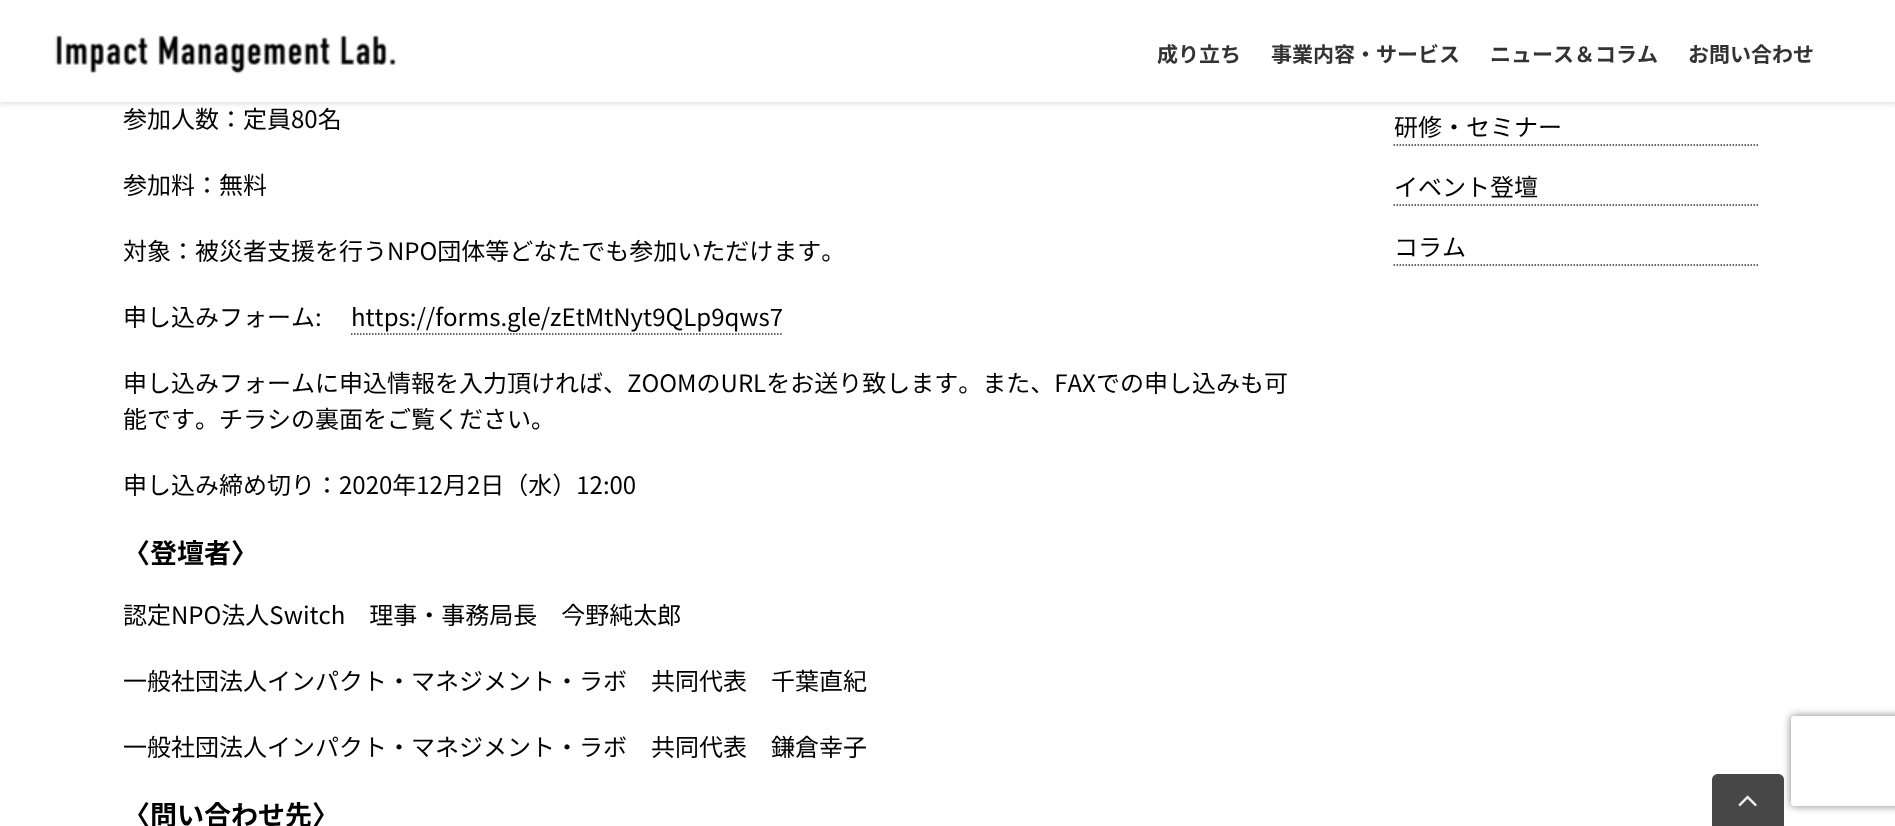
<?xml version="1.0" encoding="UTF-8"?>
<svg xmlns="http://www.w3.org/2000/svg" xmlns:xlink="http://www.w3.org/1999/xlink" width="1895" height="826">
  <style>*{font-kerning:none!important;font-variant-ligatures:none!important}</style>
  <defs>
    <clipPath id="clip1"><path d="M 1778 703 h 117 v 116 h -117 z m 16 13 h 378 c 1.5 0 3 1.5 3 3 v 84 c 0 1.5 -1.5 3 -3 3 h -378 c -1.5 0 -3 -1.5 -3 -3 v -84 c 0 -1.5 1.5 -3 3 -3 z" clip-rule="evenodd" /></clipPath>
  </defs>
  <rect width="100%" height="100%" fill="#ffffff" />
  <rect y="2" width="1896" height="102" fill="#000000" fill-opacity="0.12" filter="blur(2px)" />
  <rect width="1895" height="102" fill="#ffffff" />
  <image x="55" y="35" width="342" height="39" xlink:href="image1.png" />
  <path d="M 351 334 h 432" fill="none" stroke="#373737" stroke-width="1.5" stroke-dasharray="1.5 1.5" />
  <path d="M 1393.5 145 h 364.5" fill="none" stroke="#373737" stroke-width="1.5" stroke-dasharray="1.5 1.5" />
  <path d="M 1393.5 205 h 364.5" fill="none" stroke="#373737" stroke-width="1.5" stroke-dasharray="1.5 1.5" />
  <path d="M 1393.5 265 h 364.5" fill="none" stroke="#373737" stroke-width="1.5" stroke-dasharray="1.5 1.5" />
  <g clip-path="url(#clip1)">
    <rect x="1791" y="716" width="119" height="90" rx="3" fill="#808080" filter="blur(4px)" />
  </g>
  <path d="M 1718 774 h 60 c 3.5 0 6 2.5 6 6 v 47 h -72 v -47 c 0 -3.5 2.5 -6 6 -6 z" fill="#333333" fill-opacity="0.9" />
  <image x="1738" y="795" width="19" height="12" xlink:href="image2.png" />
  <text x="1157" y="62" style="font-family: Noto Sans JP; font-size: 21px; font-weight: bold; fill: #333333">成り立ち</text>
  <text x="1271" y="62" style="font-family: Noto Sans JP; font-size: 21px; font-weight: bold; fill: #333333">事業内容・サービス</text>
  <text x="1490" y="62" style="font-family: Noto Sans JP; font-size: 21px; font-weight: bold; fill: #333333">ニュース＆コラム</text>
  <text x="1688" y="62" style="font-family: Noto Sans JP; font-size: 21px; font-weight: bold; fill: #333333">お問い合わせ</text>
  <text x="123" y="128" style="font-family: Noto Sans JP; font-size: 24px; fill: #000000">参加人数：定員80名</text>
  <text x="123" y="194" style="font-family: Noto Sans JP; font-size: 24px; fill: #000000">参加料：無料</text>
  <text x="123" y="260" style="font-family: Noto Sans JP; font-size: 24px; fill: #000000">対象：被災者支援を行うNPO団体等どなたでも参加いただけます。</text>
  <text x="123" y="326" style="font-family: Noto Sans JP; font-size: 24px; fill: #000000">申し込みフォーム:</text>
  <text x="351" y="326" style="font-family: Noto Sans JP; font-size: 24px; fill: #000000">https://forms.gle/zEtMtNyt9QLp9qws7</text>
  <text x="123" y="392" style="font-family: Noto Sans JP; font-size: 24px; fill: #000000">申し込みフォームに申込情報を入力頂ければ、ZOOMのURLをお送り致します。また、FAX</text>
  <text x="1096" y="392" style="font-family: Noto Sans JP; font-size: 24px; fill: #000000">での申し込みも可</text>
  <text x="123" y="428" style="font-family: Noto Sans JP; font-size: 24px; fill: #000000">能です。チラシの裏面をご覧ください。</text>
  <text x="123" y="494" style="font-family: Noto Sans JP; font-size: 24px; fill: #000000">申し込み締め切り：2020年12月2日（水）12:00</text>
  <text x="123" y="563" style="font-family: Noto Sans JP; font-size: 27px; font-weight: bold; fill: #000000">〈登壇者〉</text>
  <text x="123" y="624" style="font-family: Noto Sans JP; font-size: 24px; fill: #000000">認定NPO法人Switch　理事・事務局長　今野純太郎</text>
  <text x="123" y="690" style="font-family: Noto Sans JP; font-size: 24px; fill: #000000">一般社団法人インパクト・マネジメント・ラボ　共同代表　千葉直紀</text>
  <text x="123" y="756" style="font-family: Noto Sans JP; font-size: 24px; fill: #000000">一般社団法人インパクト・マネジメント・ラボ　共同代表　鎌倉幸子</text>
  <text x="123" y="825" style="font-family: Noto Sans JP; font-size: 27px; font-weight: bold; fill: #000000">〈問い合わせ先〉</text>
  <text x="1394" y="136" style="font-family: Noto Sans JP; font-size: 24px; fill: #000000">研修・セミナー</text>
  <text x="1394" y="196" style="font-family: Noto Sans JP; font-size: 24px; fill: #000000">イベント登壇</text>
  <text x="1394" y="256" style="font-family: Noto Sans JP; font-size: 24px; fill: #000000">コラム</text>
</svg>
